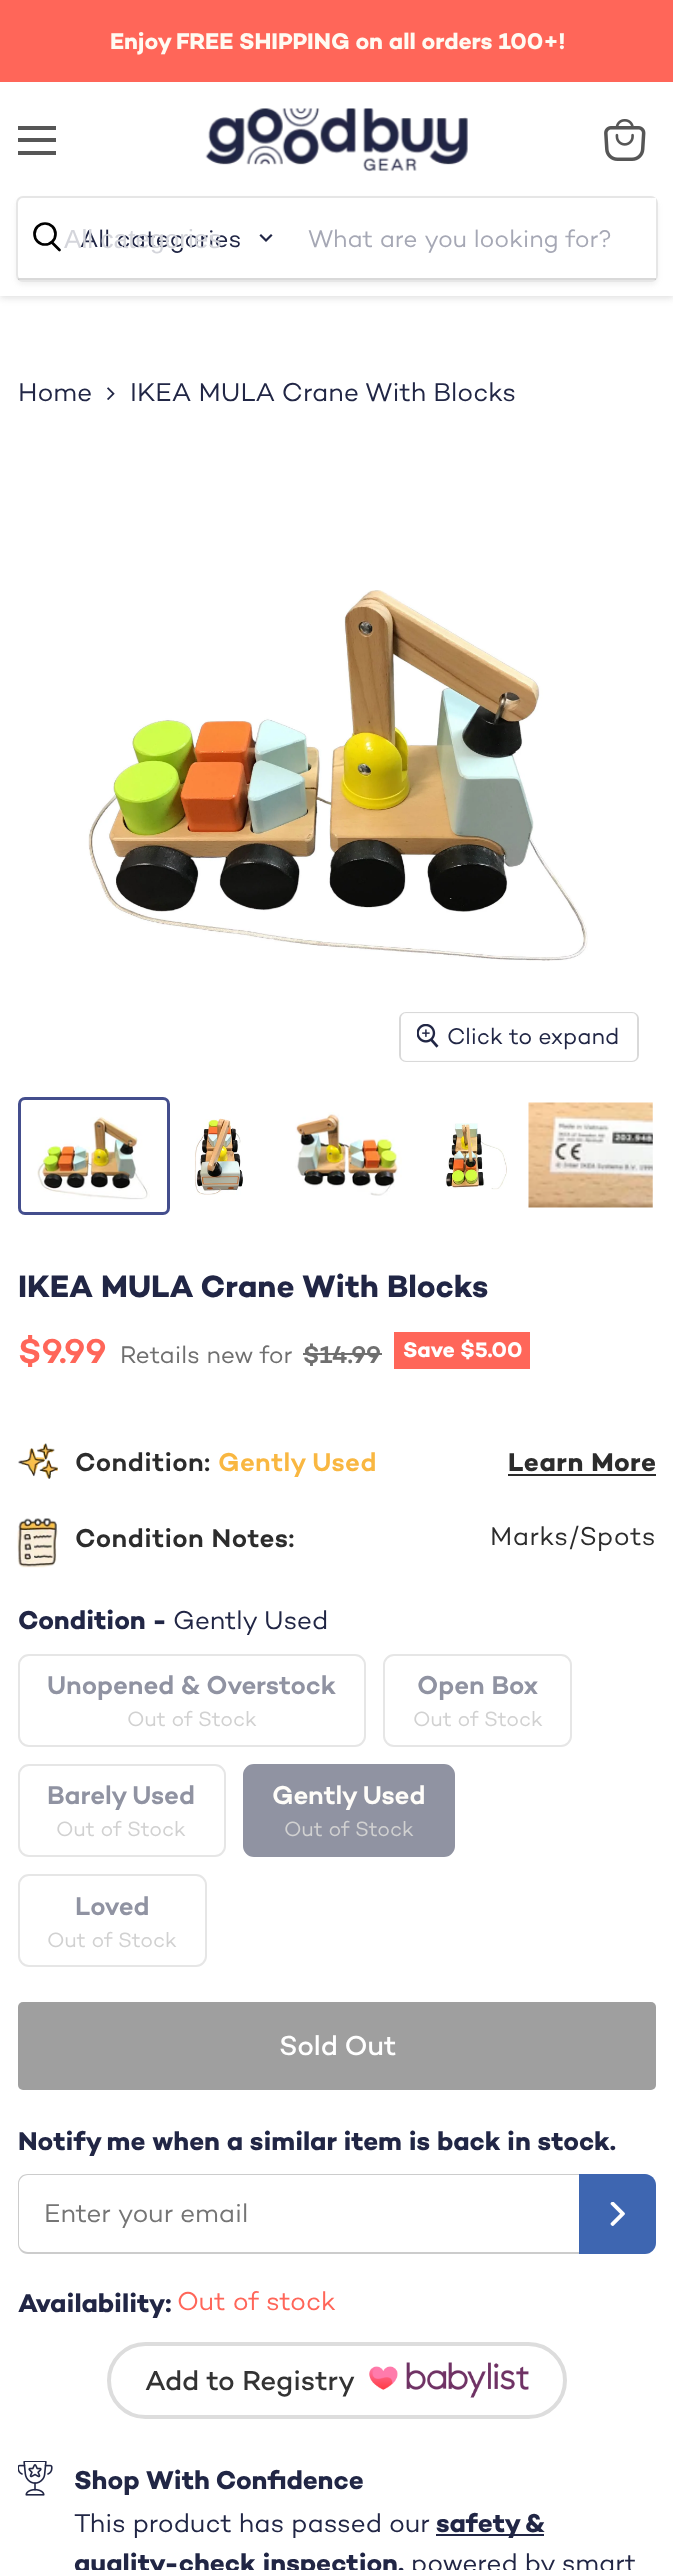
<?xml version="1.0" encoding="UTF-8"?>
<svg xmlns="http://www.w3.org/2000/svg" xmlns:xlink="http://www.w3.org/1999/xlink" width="673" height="2570">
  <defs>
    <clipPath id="clip1"><path d="M 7 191 h 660 v 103 h -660 z m 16 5 h 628 c 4 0 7 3 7 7 v 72 c 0 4 -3 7 -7 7 h -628 c -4 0 -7 -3 -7 -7 v -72 c 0 -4 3 -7 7 -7 z" clip-rule="evenodd" /></clipPath>
  </defs>
  <rect width="100%" height="100%" fill="#ffffff" />
  <rect y="84" width="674" height="214" fill="#808080" fill-opacity="0.25" filter="blur(3.5px)" />
  <rect width="673" height="82" fill="#ff6659" />
  <rect y="82" width="673" height="214" fill="#ffffff" />
  <rect x="18" y="126" width="38" height="4" fill="#565656" />
  <rect x="18" y="138" width="38" height="4" fill="#565656" />
  <rect x="18" y="151" width="38" height="4" fill="#565656" />
  <image x="604" y="119" width="42" height="42" xlink:href="image1.png" />
  <image x="205" y="108" width="263" height="64" xlink:href="image2.png" />
  <g clip-path="url(#clip1)">
    <rect x="16" y="200" width="642" height="85" rx="7" fill="#808080" fill-opacity="0.11" filter="blur(2.5px)" />
  </g>
  <rect x="17" y="197" width="640" height="84" rx="6" fill="none" stroke="#808080" stroke-opacity="0.2" stroke-width="2" />
  <path d="M 59.5 250 l -7.5 -7.5" fill="none" stroke="#000000" stroke-width="2.7" stroke-linecap="round" />
  <circle cx="45" cy="234" r="10.5" fill="none" stroke="#000000" stroke-width="2.7" />
  <path d="M 266 240.5 l 5 -5 m -5 5 l -5 -5" fill="none" stroke="#212645" stroke-width="2.2" stroke-linecap="square" />
  <rect x="652" y="198" width="4" height="80" fill="#ffffff" />
  <path d="M 18 278 h 638 c 0 1 -1 2 -2 2 h -634 c -1 0 -2 -1 -2 -2 z" fill="#ffffff" />
  <rect x="18" y="278" width="638" height="2" fill="#000000" fill-opacity="0.15" />
  <image x="107" y="387" width="8" height="13" xlink:href="image3.png" />
  <image x="88" y="590" width="500" height="371" xlink:href="image4.png" />
  <rect x="400" y="1013" width="238" height="48" rx="6" fill="none" stroke="#d9d9d9" stroke-width="2" />
  <rect x="401" y="1013" width="236" height="48" rx="5" fill="#ffffff" fill-opacity="0.9" />
  <image x="417" y="1024" width="22" height="24" xlink:href="image5.png" />
  <rect x="19.5" y="1098.5" width="149" height="115" rx="5.5" fill="none" stroke="#444e8d" stroke-width="3" />
  <image x="37" y="1116" width="113" height="84" xlink:href="image6.png" />
  <image x="194" y="1118" width="49" height="77" xlink:href="image7.png" />
  <image x="295" y="1112" width="107" height="84" xlink:href="image8.png" />
  <image x="445" y="1123" width="62" height="67" xlink:href="image9.png" />
  <image x="528" y="1102" width="125" height="106" xlink:href="image10.png" />
  <rect x="303" y="1353" width="79" height="2" fill="#6f6f6f" />
  <rect x="394" y="1332" width="136" height="37" fill="#ff6659" />
  <image x="18" y="1443" width="40" height="36" xlink:href="image11.png" />
  <rect x="508" y="1474" width="148" height="2" fill="#2c2c2c" />
  <image x="17" y="1518" width="41" height="50" xlink:href="image12.png" />
  <rect x="19" y="1655" width="346" height="91" rx="10" fill="none" stroke="#e6e6e6" stroke-width="2" />
  <rect x="384" y="1655" width="187" height="91" rx="10" fill="none" stroke="#e6e6e6" stroke-width="2" />
  <rect x="19" y="1765" width="206" height="91" rx="10" fill="none" stroke="#e6e6e6" stroke-width="2" />
  <rect x="244" y="1765" width="210" height="91" rx="10" fill="#9093a2" stroke="#9093a2" stroke-width="2" />
  <rect x="19" y="1875" width="187" height="91" rx="10" fill="none" stroke="#e6e6e6" stroke-width="2" />
  <rect x="18" y="2002" width="638" height="88" rx="5" fill="#9f9f9f" />
  <path d="M 28 2174 h 551 v 80 h -551 c -6 0 -10 -5 -10 -10 v -60 c 0 -6 4 -10 10 -10 z m 0 1 h 551 v 77 h -551 c -5 0 -9 -4 -9 -8 v -60 c 0 -5 4 -9 9 -9 z" fill="#cccccc" fill-rule="evenodd" />
  <path d="M 579 2174 h 66 c 6 0 11 5 11 11 v 58 c 0 6 -5 11 -11 11 h -66 z" fill="#3e66b1" />
  <image x="610" y="2202" width="15" height="24" xlink:href="image13.png" />
  <rect x="109" y="2344" width="456" height="73" rx="36.5" fill="none" stroke="#dddddd" stroke-width="4" />
  <image x="369" y="2362" width="160" height="36" xlink:href="image14.png" />
  <image x="18" y="2461" width="35" height="35" xlink:href="image15.png" />
  <rect x="436" y="2534" width="108" height="2" fill="#212645" />
  <text x="110" y="49" style="font-family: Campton; font-size: 23px; font-weight: bold; fill: #fffaf2">Enjoy FREE SHIPPING on all orders 100+!</text>
  <text x="80" y="247" style="font-family: Campton; font-size: 24.5px; fill: #212645">All categories</text>
  <text x="64" y="248" style="font-family: Liberation Sans; font-size: 26.25px; fill: #d4d5db">All categories</text>
  <text x="308" y="247" style="font-family: Campton; font-size: 24.5px; fill: #a6a8b5">What are you looking for?</text>
  <text x="18" y="401" style="font-family: Campton; font-size: 26.25px; fill: #212645">Home</text>
  <text x="130" y="401" style="font-family: Campton; font-size: 26.25px; fill: #212645">IKEA MULA Crane With Blocks</text>
  <text x="447" y="1044" style="font-family: Campton; font-size: 23px; fill: #212645">Click to expand</text>
  <text x="18" y="1297" style="font-family: Campton; font-size: 31.5px; font-weight: bold; fill: #212645">IKEA MULA Crane With Blocks</text>
  <text x="18" y="1363" style="font-family: Campton; font-size: 35px; font-weight: 600; fill: #ff6659">$9.99</text>
  <text x="120" y="1363" style="font-family: Campton; font-size: 24.5px; fill: #6f6f6f">Retails new for</text>
  <text x="303" y="1363" style="font-family: Campton; font-size: 24.5px; font-weight: 600; fill: #6f6f6f">$14.99</text>
  <text x="403" y="1357" style="font-family: Campton; font-size: 21.5px; font-weight: bold; fill: #ffffff">Save $5.00</text>
  <text x="75" y="1471" style="font-family: Campton; font-size: 26.25px; font-weight: 600; letter-spacing: 0.5px; fill: #2c2c2c">Condition:</text>
  <text x="218" y="1471" style="font-family: Campton; font-size: 26.25px; font-weight: 600; letter-spacing: 0.5px; fill: #f9b741">Gently Used</text>
  <text x="508" y="1471" style="font-family: Campton; font-size: 26.25px; font-weight: bold; letter-spacing: 0.5px; fill: #2c2c2c">Learn More</text>
  <text x="75" y="1547" style="font-family: Campton; font-size: 26.25px; font-weight: 600; letter-spacing: 0.5px; fill: #2c2c2c">Condition Notes:</text>
  <text x="490" y="1545" style="font-family: Campton; font-size: 26.25px; letter-spacing: 0.5px; fill: #2c2c2c">Marks/Spots</text>
  <text x="18" y="1629" style="font-family: Campton; font-size: 26.25px; font-weight: bold; fill: #212645">Condition -</text>
  <text x="173" y="1629" style="font-family: Campton; font-size: 26.25px; fill: #212645">Gently Used</text>
  <text x="47" y="1694" style="font-family: Campton; font-size: 26.25px; font-weight: 600; fill: #9093a2">Unopened &amp; Overstock</text>
  <text x="127" y="1726" style="font-family: Campton; font-size: 21px; fill: #d1d1d1">Out of Stock</text>
  <text x="417" y="1694" style="font-family: Campton; font-size: 26.25px; font-weight: 600; fill: #9093a2">Open Box</text>
  <text x="413" y="1726" style="font-family: Campton; font-size: 21px; fill: #d1d1d1">Out of Stock</text>
  <text x="47" y="1804" style="font-family: Campton; font-size: 26.25px; font-weight: 600; fill: #9093a2">Barely Used</text>
  <text x="56" y="1836" style="font-family: Campton; font-size: 21px; fill: #d1d1d1">Out of Stock</text>
  <text x="272" y="1804" style="font-family: Campton; font-size: 26.25px; font-weight: 600; fill: #fffdf9">Gently Used</text>
  <text x="284" y="1836" style="font-family: Campton; font-size: 21px; fill: #d1d1d1">Out of Stock</text>
  <text x="75" y="1915" style="font-family: Campton; font-size: 26.25px; font-weight: 600; fill: #9093a2">Loved</text>
  <text x="47" y="1947" style="font-family: Campton; font-size: 21px; fill: #d1d1d1">Out of Stock</text>
  <text x="279" y="2055" style="font-family: Campton; font-size: 28px; font-weight: 500; fill: #ffffff">Sold Out</text>
  <text x="18" y="2150" style="font-family: Campton; font-size: 26.25px; font-weight: bold; fill: #212645">Notify me when a similar item is back in stock.</text>
  <text x="44" y="2222" style="font-family: Campton; font-size: 26.25px; fill: #757575">Enter your email</text>
  <text x="18" y="2312" style="font-family: Campton; font-size: 26.25px; font-weight: bold; fill: #212645">Availability:</text>
  <text x="177" y="2310" style="font-family: Campton; font-size: 26.25px; fill: #ff6659">Out of stock</text>
  <text x="145" y="2390" style="font-family: Campton; font-size: 28px; font-weight: 500; fill: #333333">Add to Registry</text>
  <text x="74" y="2489" style="font-family: Campton; font-size: 26.25px; font-weight: bold; fill: #212645">Shop With Confidence</text>
  <text x="74" y="2532" style="font-family: Campton; font-size: 26.25px; fill: #212645">This product has passed our</text>
  <text x="436" y="2532" style="font-family: Campton; font-size: 26.25px; font-weight: bold; fill: #212645">safety &amp;</text>
  <text x="74" y="2572" style="font-family: Campton; font-size: 26.25px; font-weight: bold; fill: #212645">quality-check inspection,</text>
  <text x="411" y="2572" style="font-family: Campton; font-size: 26.25px; fill: #212645">powered by smart</text>
</svg>
